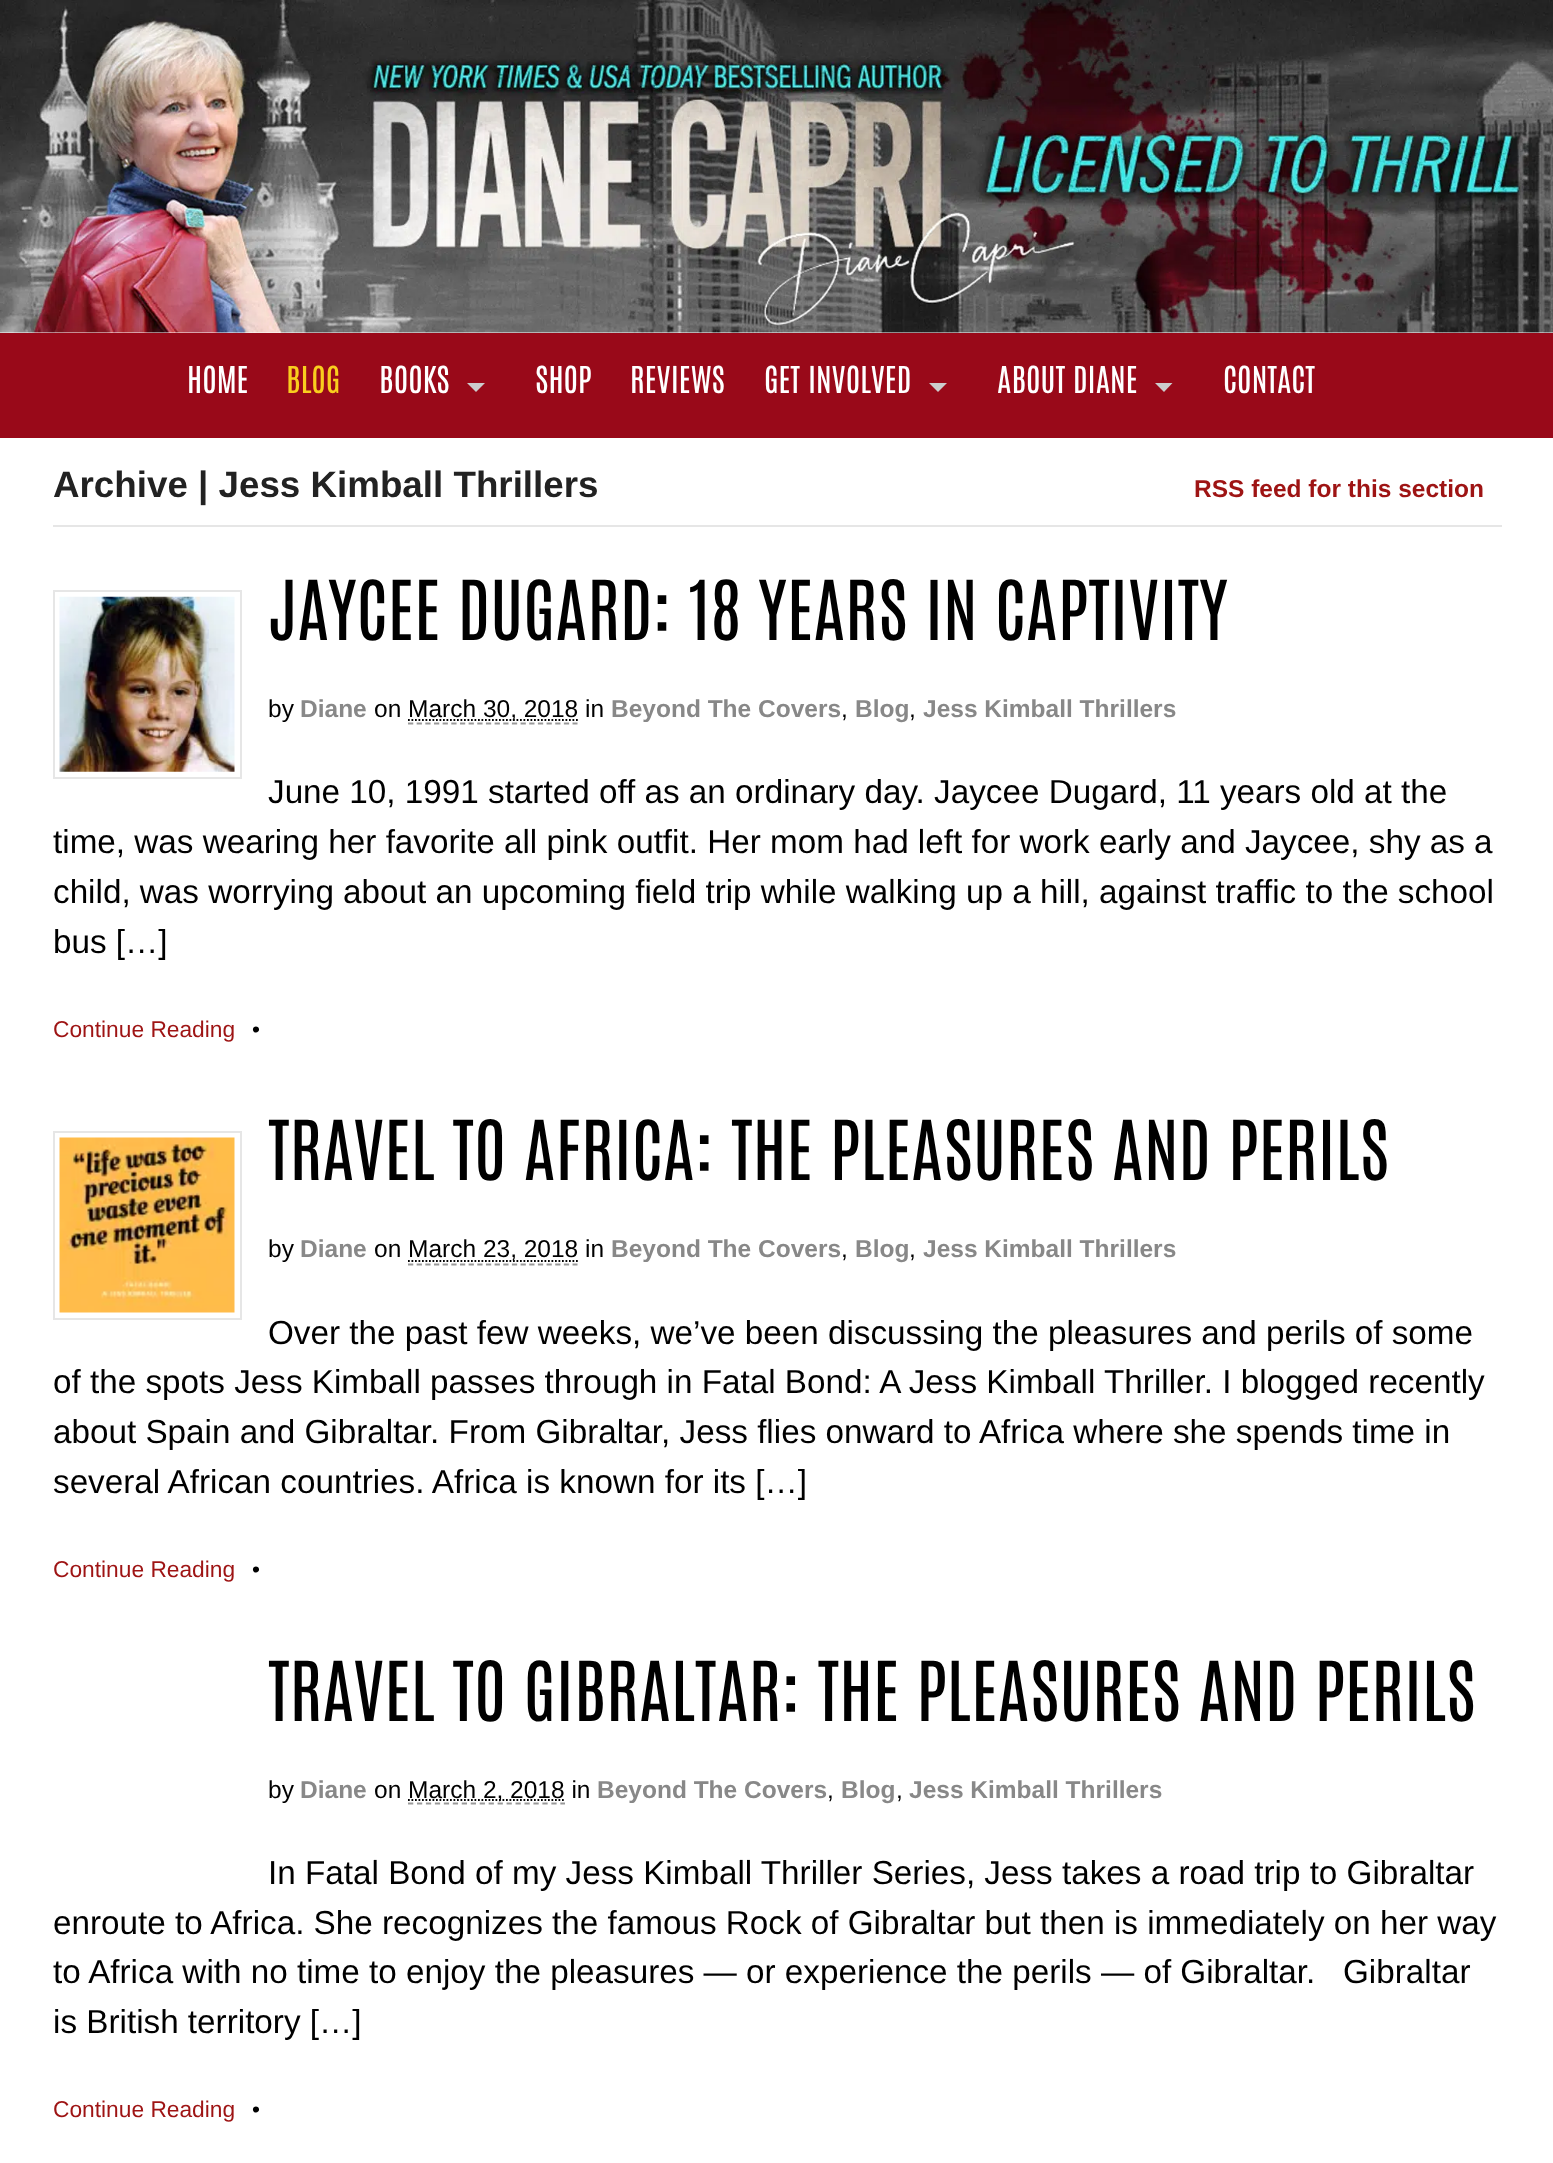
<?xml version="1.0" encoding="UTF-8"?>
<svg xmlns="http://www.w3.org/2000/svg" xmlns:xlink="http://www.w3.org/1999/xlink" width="1553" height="2163">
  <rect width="100%" height="100%" fill="#ffffff" />
  <image x="0" y="0" width="1553" height="333" xlink:href="image1.png" />
  <rect y="333" width="1553" height="105" fill="#990919" />
  <path d="M 467 383 h 18 l -9 9 z" fill="#cccccc" />
  <path d="M 929 383 h 18 l -9 9 z" fill="#cccccc" />
  <path d="M 1155 383 h 17.5 l -8.5 9 z" fill="#cccccc" />
  <rect x="53" y="525" width="1449" height="2" fill="#e6e6e6" />
  <rect x="54" y="591" width="187" height="187" fill="none" stroke="#e6e6e6" stroke-width="2" />
  <image x="59" y="596" width="176" height="176" xlink:href="image2.png" />
  <path d="M 408 723.5 h 169.5" fill="none" stroke="#999999" stroke-width="1.8" stroke-dasharray="5.25 3.41" />
  <path d="M 408 720 h 170.5" fill="none" stroke="#000000" stroke-width="1.8" stroke-dasharray="1.75 1.75" />
  <rect x="54" y="1132" width="187" height="187" fill="none" stroke="#e6e6e6" stroke-width="2" />
  <image x="59" y="1137" width="176" height="176" xlink:href="image3.png" />
  <path d="M 408 1264.5 h 169.5" fill="none" stroke="#999999" stroke-width="1.8" stroke-dasharray="5.25 3.41" />
  <path d="M 408 1261 h 170.5" fill="none" stroke="#000000" stroke-width="1.8" stroke-dasharray="1.75 1.75" />
  <path d="M 408 1803.5 h 157" fill="none" stroke="#999999" stroke-width="1.8" stroke-dasharray="5.25 3.71" />
  <path d="M 408 1800 h 156.5" fill="none" stroke="#000000" stroke-width="1.8" stroke-dasharray="1.75 1.75" />
  <text x="187" y="393" style="font-family: Antonio; font-size: 31.5px; fill: #ffffff">HOME</text>
  <text x="286" y="393" style="font-family: Antonio; font-size: 31.5px; fill: #f9ce1e">BLOG</text>
  <text x="379" y="393" style="font-family: Antonio; font-size: 31.5px; fill: #ffffff">BOOKS</text>
  <text x="535" y="393" style="font-family: Antonio; font-size: 31.5px; fill: #ffffff">SHOP</text>
  <text x="630" y="393" style="font-family: Antonio; font-size: 31.5px; fill: #ffffff">REVIEWS</text>
  <text x="764" y="393" style="font-family: Antonio; font-size: 31.5px; fill: #ffffff">GET INVOLVED</text>
  <text x="997" y="393" style="font-family: Antonio; font-size: 31.5px; fill: #ffffff">ABOUT DIANE</text>
  <text x="1223" y="393" style="font-family: Antonio; font-size: 31.5px; fill: #ffffff">CONTACT</text>
  <text x="53" y="497" style="font-family: Liberation Sans; font-size: 36.75px; font-weight: bold; fill: #222222">Archive | Jess Kimball Thrillers</text>
  <text x="1194" y="497" style="font-family: Liberation Sans; font-size: 24.5px; font-weight: bold; fill: #9e1414">RSS feed for this section</text>
  <text x="268" y="640" style="font-family: Antonio; font-size: 70px; fill: #000000">JAYCEE DUGARD: 18 YEARS IN CAPTIVITY</text>
  <text x="268" y="717" style="font-family: Liberation Sans; font-size: 24.5px; fill: #000000">by</text>
  <text x="300" y="717" style="font-family: Liberation Sans; font-size: 24.5px; font-weight: bold; fill: #888888">Diane</text>
  <text x="374" y="717" style="font-family: Liberation Sans; font-size: 24.5px; fill: #000000">on</text>
  <text x="408" y="717" style="font-family: Liberation Sans; font-size: 24.5px; fill: #000000">March 30, 2018 in</text>
  <text x="611" y="717" style="font-family: Liberation Sans; font-size: 24.5px; font-weight: bold; fill: #888888">Beyond The Covers</text>
  <text x="841" y="717" style="font-family: Liberation Sans; font-size: 24.5px; fill: #000000">,</text>
  <text x="855" y="717" style="font-family: Liberation Sans; font-size: 24.5px; font-weight: bold; fill: #888888">Blog</text>
  <text x="909" y="717" style="font-family: Liberation Sans; font-size: 24.5px; fill: #000000">,</text>
  <text x="923" y="717" style="font-family: Liberation Sans; font-size: 24.5px; font-weight: bold; fill: #888888">Jess Kimball Thrillers</text>
  <text x="268" y="803" style="font-family: Liberation Sans; font-size: 33.25px; fill: #000000">June 10, 1991 started off as an ordinary day. Jaycee Dugard, 11 years old at the</text>
  <text x="53" y="853" style="font-family: Liberation Sans; font-size: 33.25px; fill: #000000">time, was wearing her favorite all pink outfit. Her mom had left for work early and Jaycee, shy as a</text>
  <text x="53" y="903" style="font-family: Liberation Sans; font-size: 33.25px; fill: #000000">child, was worrying about an upcoming field trip while walking up a hill, against traffic to the school</text>
  <text x="53" y="953" style="font-family: Liberation Sans; font-size: 33.25px; fill: #000000">bus […]</text>
  <text x="53" y="1037" style="font-family: Liberation Sans; font-size: 22.75px; fill: #9e1414">Continue Reading</text>
  <text x="252" y="1037" style="font-family: Liberation Sans; font-size: 22.75px; fill: #000000">•</text>
  <text x="268" y="1180" style="font-family: Antonio; font-size: 70px; fill: #000000">TRAVEL TO AFRICA: THE PLEASURES AND PERILS</text>
  <text x="268" y="1257" style="font-family: Liberation Sans; font-size: 24.5px; fill: #000000">by</text>
  <text x="300" y="1257" style="font-family: Liberation Sans; font-size: 24.5px; font-weight: bold; fill: #888888">Diane</text>
  <text x="374" y="1257" style="font-family: Liberation Sans; font-size: 24.5px; fill: #000000">on</text>
  <text x="408" y="1257" style="font-family: Liberation Sans; font-size: 24.5px; fill: #000000">March 23, 2018 in</text>
  <text x="611" y="1257" style="font-family: Liberation Sans; font-size: 24.5px; font-weight: bold; fill: #888888">Beyond The Covers</text>
  <text x="841" y="1257" style="font-family: Liberation Sans; font-size: 24.5px; fill: #000000">,</text>
  <text x="855" y="1257" style="font-family: Liberation Sans; font-size: 24.5px; font-weight: bold; fill: #888888">Blog</text>
  <text x="909" y="1257" style="font-family: Liberation Sans; font-size: 24.5px; fill: #000000">,</text>
  <text x="923" y="1257" style="font-family: Liberation Sans; font-size: 24.5px; font-weight: bold; fill: #888888">Jess Kimball Thrillers</text>
  <text x="268" y="1344" style="font-family: Liberation Sans; font-size: 33.25px; fill: #000000">Over the past few weeks, we’ve been discussing the pleasures and perils of some</text>
  <text x="53" y="1393" style="font-family: Liberation Sans; font-size: 33.25px; fill: #000000">of the spots Jess Kimball passes through in Fatal Bond: A Jess Kimball Thriller. I blogged recently</text>
  <text x="53" y="1443" style="font-family: Liberation Sans; font-size: 33.25px; fill: #000000">about Spain and Gibraltar. From Gibraltar, Jess flies onward to Africa where she spends time in</text>
  <text x="53" y="1493" style="font-family: Liberation Sans; font-size: 33.25px; fill: #000000">several African countries. Africa is known for its […]</text>
  <text x="53" y="1577" style="font-family: Liberation Sans; font-size: 22.75px; fill: #9e1414">Continue Reading</text>
  <text x="252" y="1577" style="font-family: Liberation Sans; font-size: 22.75px; fill: #000000">•</text>
  <text x="268" y="1721" style="font-family: Antonio; font-size: 70px; fill: #000000">TRAVEL TO GIBRALTAR: THE PLEASURES AND PERILS</text>
  <text x="268" y="1798" style="font-family: Liberation Sans; font-size: 24.5px; fill: #000000">by</text>
  <text x="300" y="1798" style="font-family: Liberation Sans; font-size: 24.5px; font-weight: bold; fill: #888888">Diane</text>
  <text x="374" y="1798" style="font-family: Liberation Sans; font-size: 24.5px; fill: #000000">on</text>
  <text x="408" y="1798" style="font-family: Liberation Sans; font-size: 24.5px; fill: #000000">March 2, 2018 in</text>
  <text x="597" y="1798" style="font-family: Liberation Sans; font-size: 24.5px; font-weight: bold; fill: #888888">Beyond The Covers</text>
  <text x="827" y="1798" style="font-family: Liberation Sans; font-size: 24.5px; fill: #000000">,</text>
  <text x="841" y="1798" style="font-family: Liberation Sans; font-size: 24.5px; font-weight: bold; fill: #888888">Blog</text>
  <text x="896" y="1798" style="font-family: Liberation Sans; font-size: 24.5px; fill: #000000">,</text>
  <text x="909" y="1798" style="font-family: Liberation Sans; font-size: 24.5px; font-weight: bold; fill: #888888">Jess Kimball Thrillers</text>
  <text x="268" y="1884" style="font-family: Liberation Sans; font-size: 33.25px; fill: #000000">In Fatal Bond of my Jess Kimball Thriller Series, Jess takes a road trip to Gibraltar</text>
  <text x="53" y="1934" style="font-family: Liberation Sans; font-size: 33.25px; fill: #000000">enroute to Africa. She recognizes the famous Rock of Gibraltar but then is immediately on her way</text>
  <text x="53" y="1983" style="font-family: Liberation Sans; font-size: 33.25px; fill: #000000" xml:space="preserve">to Africa with no time to enjoy the pleasures — or experience the perils — of Gibraltar.   Gibraltar</text>
  <text x="53" y="2033" style="font-family: Liberation Sans; font-size: 33.25px; fill: #000000">is British territory […]</text>
  <text x="53" y="2117" style="font-family: Liberation Sans; font-size: 22.75px; fill: #9e1414">Continue Reading</text>
  <text x="252" y="2117" style="font-family: Liberation Sans; font-size: 22.75px; fill: #000000">•</text>
</svg>
